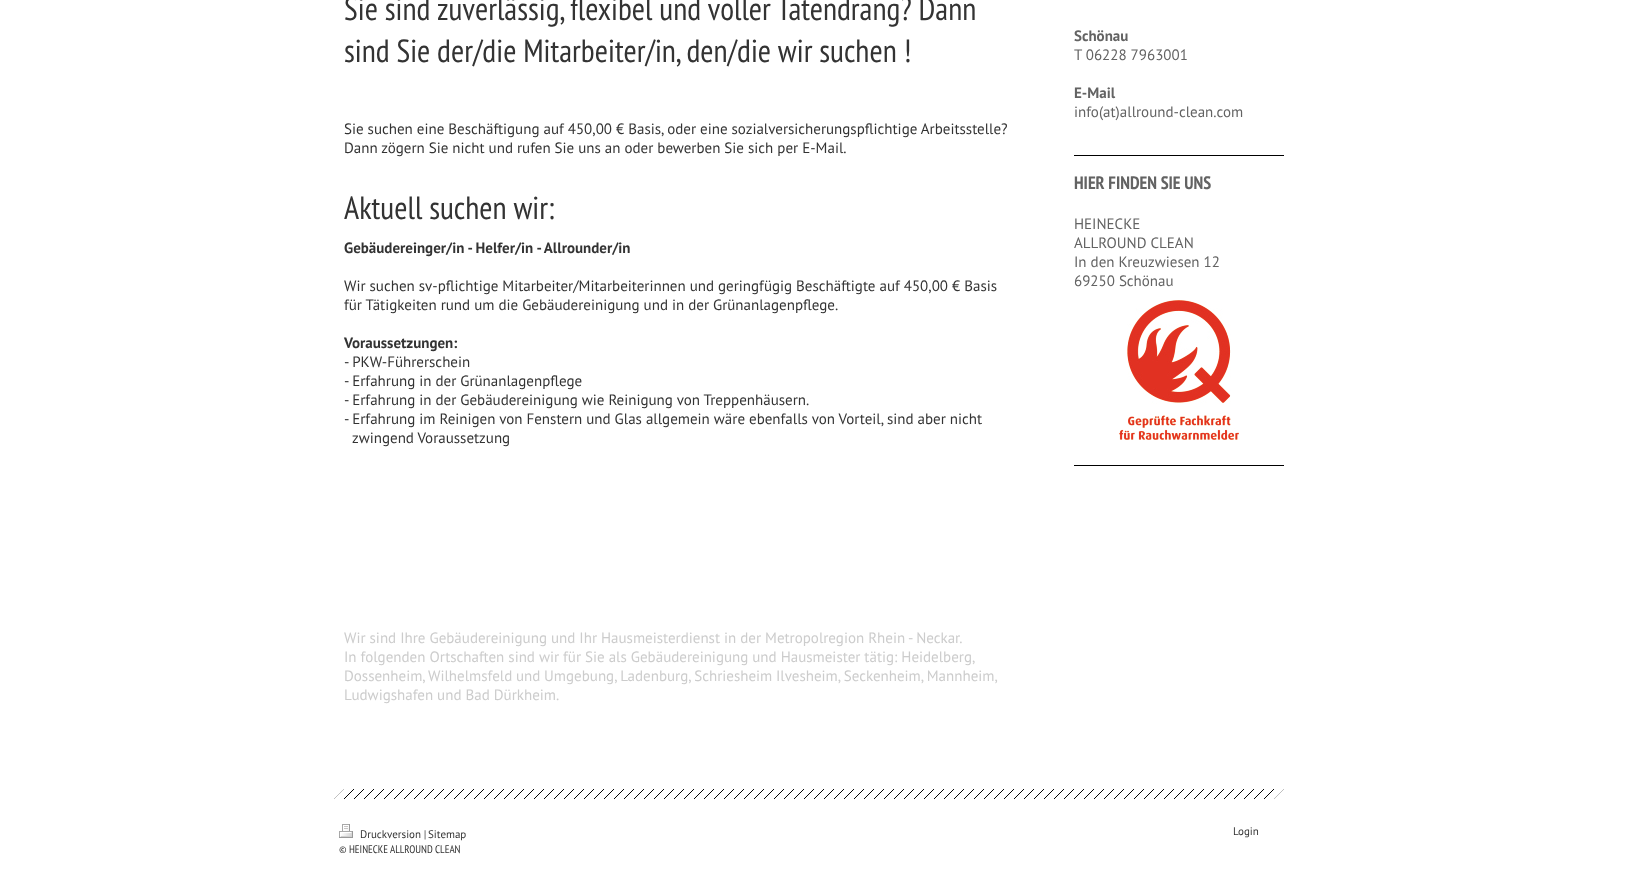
<?xml version="1.0" encoding="UTF-8"?>
<svg xmlns="http://www.w3.org/2000/svg" xmlns:xlink="http://www.w3.org/1999/xlink" width="1628" height="893">
  <rect width="100%" height="100%" fill="#ffffff" />
  <rect x="1074" y="155" width="210" height="1" fill="#000000" />
  <image x="1119" y="300" width="120" height="140" xlink:href="image1.png" />
  <rect x="1074" y="465" width="210" height="1" fill="#000000" />
  <image x="334" y="789" width="950" height="10" xlink:href="image2.png" />
  <image x="339" y="824" width="14" height="14" xlink:href="image3.png" />
  <text x="344" y="20" style="font-family: PT Sans Narrow; font-size: 32px; fill: #333333">Sie sind zuverlässig, flexibel und voller Tatendrang? Dann</text>
  <text x="344" y="62" style="font-family: PT Sans Narrow; font-size: 32px; fill: #333333">sind Sie der/die Mitarbeiter/in, den/die wir suchen !</text>
  <text x="344" y="134" style="font-family: PT Sans; font-size: 15px; fill: #333333">Sie suchen eine Beschäftigung auf 450,00 € Basis, oder eine sozialversicherungspflichtige Arbeitsstelle?</text>
  <text x="344" y="153" style="font-family: PT Sans; font-size: 15px; fill: #333333">Dann zögern Sie nicht und rufen Sie uns an oder bewerben Sie sich per E-Mail.</text>
  <text x="344" y="219" style="font-family: PT Sans Narrow; font-size: 32px; fill: #333333">Aktuell suchen wir:</text>
  <text x="344" y="253" style="font-family: PT Sans; font-size: 15px; font-weight: bold; fill: #333333">Gebäudereinger/in - Helfer/in - Allrounder/in</text>
  <text x="344" y="291" style="font-family: PT Sans; font-size: 15px; fill: #333333">Wir suchen sv-pflichtige Mitarbeiter/Mitarbeiterinnen und geringfügig Beschäftigte auf 450,00 € Basis</text>
  <text x="344" y="310" style="font-family: PT Sans; font-size: 15px; fill: #333333">für Tätigkeiten rund um die Gebäudereinigung und in der Grünanlagenpflege.</text>
  <text x="344" y="348" style="font-family: PT Sans; font-size: 15px; font-weight: bold; fill: #333333">Voraussetzungen:</text>
  <text x="344" y="367" style="font-family: PT Sans; font-size: 15px; fill: #333333">- PKW-Führerschein</text>
  <text x="344" y="386" style="font-family: PT Sans; font-size: 15px; fill: #333333">- Erfahrung in der Grünanlagenpflege</text>
  <text x="344" y="405" style="font-family: PT Sans; font-size: 15px; fill: #333333">- Erfahrung in der Gebäudereinigung wie Reinigung von Treppenhäusern.</text>
  <text x="344" y="424" style="font-family: PT Sans; font-size: 15px; fill: #333333">- Erfahrung im Reinigen von Fenstern und Glas allgemein wäre ebenfalls von Vorteil, sind aber nicht</text>
  <text x="352" y="443" style="font-family: PT Sans; font-size: 15px; fill: #333333">zwingend Voraussetzung</text>
  <text x="344" y="643" style="font-family: PT Sans; font-size: 15px; fill: #cccccc">Wir sind Ihre Gebäudereinigung und Ihr Hausmeisterdienst in der Metropolregion Rhein - Neckar.</text>
  <text x="344" y="662" style="font-family: PT Sans; font-size: 15px; fill: #cccccc">In folgenden Ortschaften sind wir für Sie als Gebäudereinigung und Hausmeister tätig: Heidelberg,</text>
  <text x="344" y="681" word-spacing="-0.25" style="font-family: PT Sans; font-size: 15px; fill: #cccccc">Dossenheim, Wilhelmsfeld und Umgebung, Ladenburg, Schriesheim Ilvesheim, Seckenheim, Mannheim,</text>
  <text x="344" y="700" style="font-family: PT Sans; font-size: 15px; fill: #cccccc">Ludwigshafen und Bad Dürkheim.</text>
  <text x="1074" y="41" style="font-family: PT Sans; font-size: 15px; font-weight: bold; fill: #636363">Schönau</text>
  <text x="1074" y="60" style="font-family: PT Sans; font-size: 15px; fill: #636363">T 06228 7963001</text>
  <text x="1074" y="98" style="font-family: PT Sans; font-size: 15px; font-weight: bold; fill: #636363">E-Mail</text>
  <text x="1074" y="117" style="font-family: PT Sans; font-size: 15px; fill: #636363">info(at)allround-clean.com</text>
  <text x="1074" y="189" style="font-family: PT Sans Narrow; font-size: 18px; font-weight: bold; fill: #636363">HIER FINDEN SIE UNS</text>
  <text x="1074" y="229" style="font-family: PT Sans; font-size: 15px; fill: #636363">HEINECKE</text>
  <text x="1074" y="248" style="font-family: PT Sans; font-size: 15px; fill: #636363">ALLROUND CLEAN</text>
  <text x="1074" y="267" style="font-family: PT Sans; font-size: 15px; fill: #636363">In den Kreuzwiesen 12</text>
  <text x="1074" y="286" style="font-family: PT Sans; font-size: 15px; fill: #636363">69250 Schönau</text>
  <text x="360" y="838" style="font-family: PT Sans; font-size: 11px; fill: #333333">Druckversion</text>
  <text x="424" y="838" style="font-family: PT Sans Narrow; font-size: 11px; fill: #333333">|</text>
  <text x="428" y="838" style="font-family: PT Sans; font-size: 11px; fill: #333333">Sitemap</text>
  <text x="339" y="853" style="font-family: PT Sans Narrow; font-size: 11px; fill: #333333">© HEINECKE ALLROUND CLEAN</text>
  <text x="1233" y="835" style="font-family: PT Sans; font-size: 11px; fill: #333333">Login</text>
</svg>
